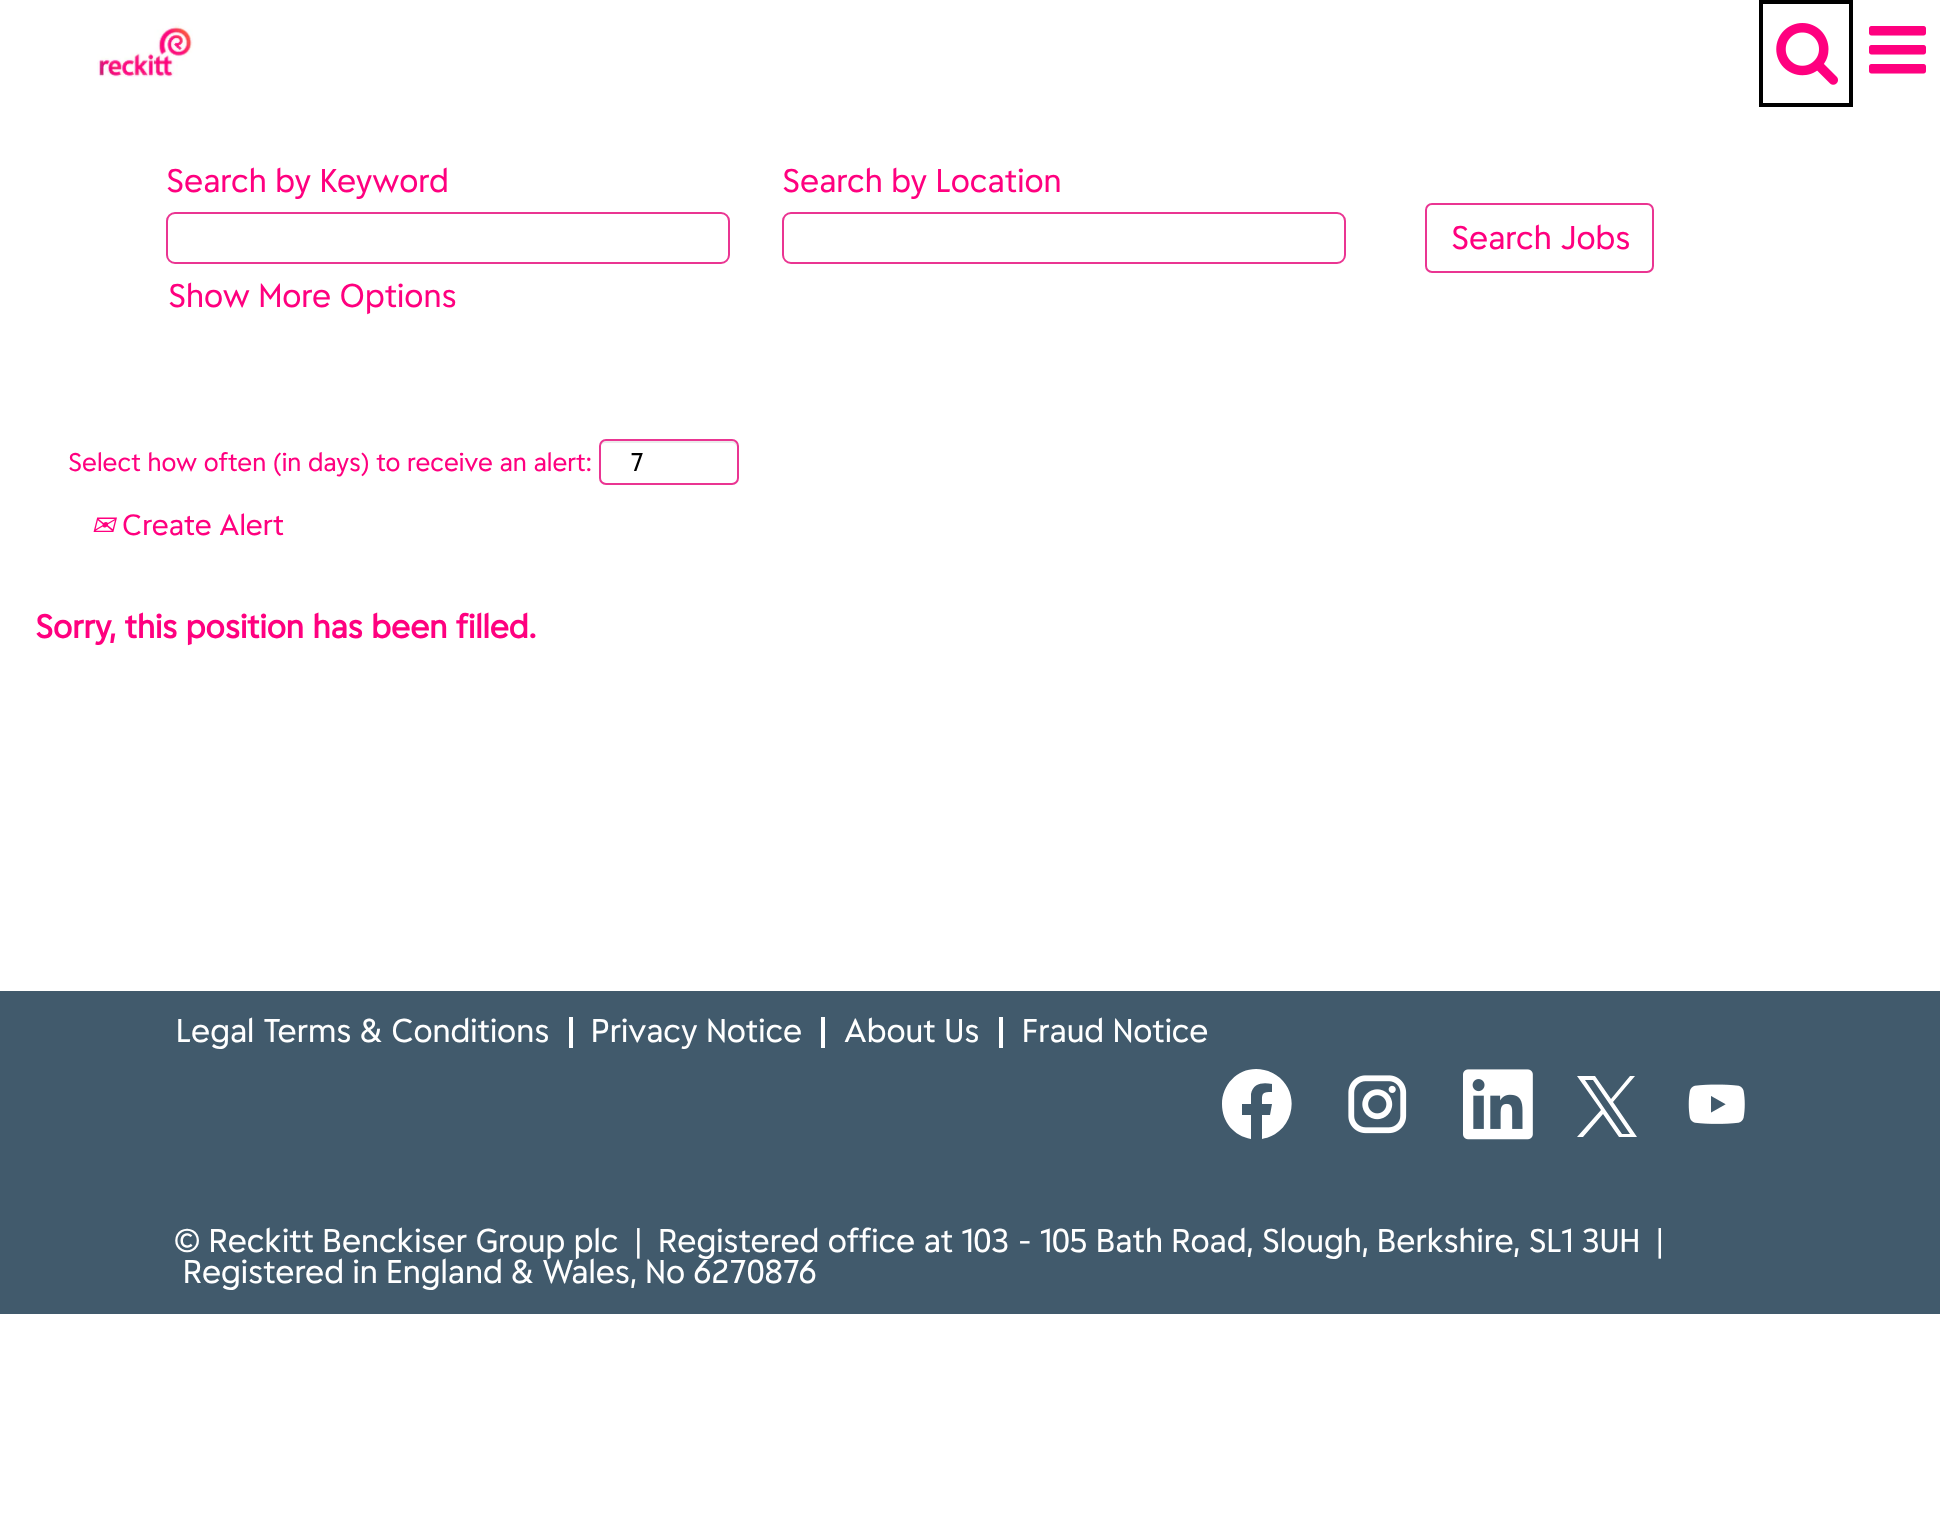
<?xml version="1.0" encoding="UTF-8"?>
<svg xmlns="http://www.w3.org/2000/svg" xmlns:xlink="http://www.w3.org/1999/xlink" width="1940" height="1517">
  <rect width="100%" height="100%" fill="#ffffff" />
  <image x="97" y="22" width="96" height="55" xlink:href="image1.png" />
  <rect x="1761" y="2" width="90" height="103" fill="none" stroke="#000000" stroke-width="4" />
  <image x="1776" y="23" width="62" height="62" xlink:href="image2.png" />
  <image x="1869" y="26" width="57" height="48" xlink:href="image3.png" />
  <rect x="167" y="213" width="562" height="50" rx="8" fill="none" stroke="#ea3592" stroke-width="2" />
  <rect x="783" y="213" width="562" height="50" rx="8" fill="none" stroke="#ea3592" stroke-width="2" />
  <rect x="1426" y="204" width="227" height="68" rx="6" fill="none" stroke="#ea3592" stroke-width="2" />
  <path d="M 606 443 h 126 c 2 0 5 2 5 5 v -2 c 0 -3 -2 -5 -5 -5 h -127 c -3 0 -5 2 -5 5 v 2 c 0 -3 3 -5 6 -5 z" fill="#ececec" />
  <rect x="600" y="440" width="138" height="44" rx="6" fill="none" stroke="#ea3592" stroke-width="2" />
  <rect y="991" width="1940" height="323" fill="#415a6c" />
  <rect x="569" y="1017" width="4" height="31" fill="#ffffff" />
  <rect x="821" y="1017" width="4" height="31" fill="#ffffff" />
  <rect x="999" y="1017" width="4" height="31" fill="#ffffff" />
  <path d="M 1256 1069 c -19 0 -34 16 -34 35 c 0 18 12 32 29 35 v -24 h -9 v -11 h 9 v -10 c 2 -11 12 -12 21 -10 v 8 c -11 0 -10 2 -10 12 h 10 l -2 11 h -8 v 24 c 31 -5 41 -46 14 -64 c -6 -4 -13 -6 -20 -6 z" fill="#ffffff" />
  <image x="1348" y="1075" width="59" height="59" xlink:href="image4.png" />
  <image x="1463" y="1069" width="70" height="71" xlink:href="image5.png" />
  <path d="M 1613 1102 l 22 -26 h -5 l -19 23 l -16 -23 h -18 l 24 34 l -24 27 h 6 l 20 -23 l 16 23 h 18 z m -7 9 l -21 -31 h 8 l 37 54 h -8 z" fill="#ffffff" />
  <image x="1688" y="1084" width="57" height="40" xlink:href="image6.png" />
  <text x="166" y="192" style="font-family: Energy; font-size: 31.5px; fill: #ff007f">Search by Keyword</text>
  <text x="782" y="192" style="font-family: Energy; font-size: 31.5px; fill: #ff007f">Search by Location</text>
  <text x="168" y="307" style="font-family: Energy; font-size: 31.5px; fill: #ff007f">Show More Options</text>
  <text x="1451" y="249" style="font-family: Energy; font-size: 31.5px; fill: #ff007f">Search Jobs</text>
  <text x="68" y="471" style="font-family: Energy; font-size: 24.5px; fill: #ff007f">Select how often (in days) to receive an alert:</text>
  <text x="630" y="471" style="font-family: Energy; font-size: 24.5px; fill: #000000">7</text>
  <text x="91" y="535" style="font-family: DejaVu Sans; font-size: 28px; font-style: italic; fill: #ff007f">✉</text>
  <text x="122" y="535" style="font-family: Energy; font-size: 28px; fill: #ff007f">Create Alert</text>
  <text x="35" y="638" style="font-family: Energy; font-size: 31.5px; font-weight: bold; fill: #ff007f">Sorry, this position has been filled.</text>
  <text x="176" y="1042" style="font-family: Energy; font-size: 31.5px; fill: #ffffff">Legal Terms &amp; Conditions</text>
  <text x="591" y="1042" style="font-family: Energy; font-size: 31.5px; fill: #ffffff">Privacy Notice</text>
  <text x="844" y="1042" style="font-family: Energy; font-size: 31.5px; fill: #ffffff">About Us</text>
  <text x="1022" y="1042" style="font-family: Energy; font-size: 31.5px; fill: #ffffff">Fraud Notice</text>
  <text x="174" y="1252" style="font-family: Energy; font-size: 31.5px; fill: #ffffff" xml:space="preserve">© Reckitt Benckiser Group plc  |  Registered office at 103 - 105 Bath Road, Slough, Berkshire, SL1 3UH  |</text>
  <text x="183" y="1283" style="font-family: Energy; font-size: 31.5px; fill: #ffffff">Registered in England &amp; Wales, No 6270876</text>
</svg>
